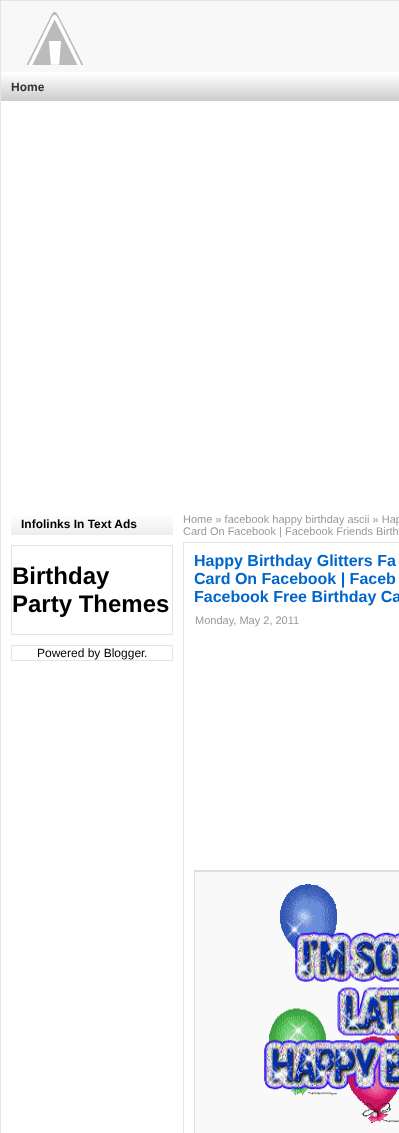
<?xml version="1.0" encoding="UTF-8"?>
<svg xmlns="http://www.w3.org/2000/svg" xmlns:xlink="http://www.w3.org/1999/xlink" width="399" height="1133">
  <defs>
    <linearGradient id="g1" gradientUnits="userSpaceOnUse" x1="1" y1="73" x2="1" y2="101"><stop offset="0" stop-color="#ffffff" /><stop offset="1" stop-color="#cccccc" /></linearGradient>
    <linearGradient id="g2" gradientUnits="userSpaceOnUse" x1="11" y1="513" x2="11" y2="535"><stop offset="0" stop-color="#ffffff" /><stop offset="1" stop-color="#ededed" /></linearGradient>
  </defs>
  <rect width="100%" height="100%" fill="#ffffff" />
  <rect width="399" height="1" fill="#e5e5e5" />
  <rect width="1" height="1133" fill="#e5e5e5" />
  <rect x="1" y="1" width="398" height="71" fill="#f8f8f8" />
  <image x="26" y="12" width="58" height="53" xlink:href="image1.png" />
  <rect x="1" y="74" width="398" height="27" fill="url(#g1)" />
  <rect x="11" y="516" width="162" height="19" fill="url(#g2)" />
  <rect x="11.5" y="545.5" width="161" height="89" fill="none" stroke="#e5e5e5" />
  <rect x="11.5" y="645.5" width="161" height="15" fill="none" stroke="#e5e5e5" />
  <rect x="183.5" y="542.5" width="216" height="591" fill="none" stroke="#e5e5e5" />
  <rect x="194.5" y="870.5" width="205" height="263" fill="none" stroke="#dfdfdf" />
  <rect x="195" y="872" width="204" height="261" fill="#f9f9f9" />
  <rect x="195" y="871" width="204" height="1" fill="#dfdfdf" />
  <image x="264" y="884" width="135" height="240" xlink:href="image2.png" />
  <text x="11" y="91" style="font-family: Liberation Sans; font-size: 12px; font-weight: bold; fill: #333333">Home</text>
  <text x="21" y="528" style="font-family: Liberation Sans; font-size: 12px; font-weight: bold; fill: #000000">Infolinks In Text Ads</text>
  <text x="12" y="584" style="font-family: Liberation Sans; font-size: 24px; font-weight: bold; fill: #000000">Birthday</text>
  <text x="12" y="612" style="font-family: Liberation Sans; font-size: 24px; font-weight: bold; fill: #000000">Party Themes</text>
  <text x="37" y="657" style="font-family: Liberation Sans; font-size: 12px; fill: #000000">Powered by Blogger</text>
  <text x="144" y="657" style="font-family: Liberation Sans; font-size: 12px; fill: #000000">.</text>
  <text x="183" y="523" style="font-family: Liberation Sans; font-size: 11px; fill: #999999">Home » facebook happy birthday ascii » Hap</text>
  <text x="183" y="535" style="font-family: Liberation Sans; font-size: 11px; fill: #999999">Card On Facebook | Facebook Friends Birth</text>
  <text x="194" y="566" style="font-family: Liberation Sans; font-size: 16px; font-weight: bold; fill: #0066cc">Happy Birthday Glitters Fa</text>
  <text x="194" y="584" style="font-family: Liberation Sans; font-size: 16px; font-weight: bold; fill: #0066cc">Card On Facebook | Faceb</text>
  <text x="194" y="602" style="font-family: Liberation Sans; font-size: 16px; font-weight: bold; fill: #0066cc">Facebook Free Birthday Ca</text>
  <text x="195" y="624" style="font-family: Liberation Sans; font-size: 11px; fill: #999999">Monday, May 2, 2011</text>
</svg>
